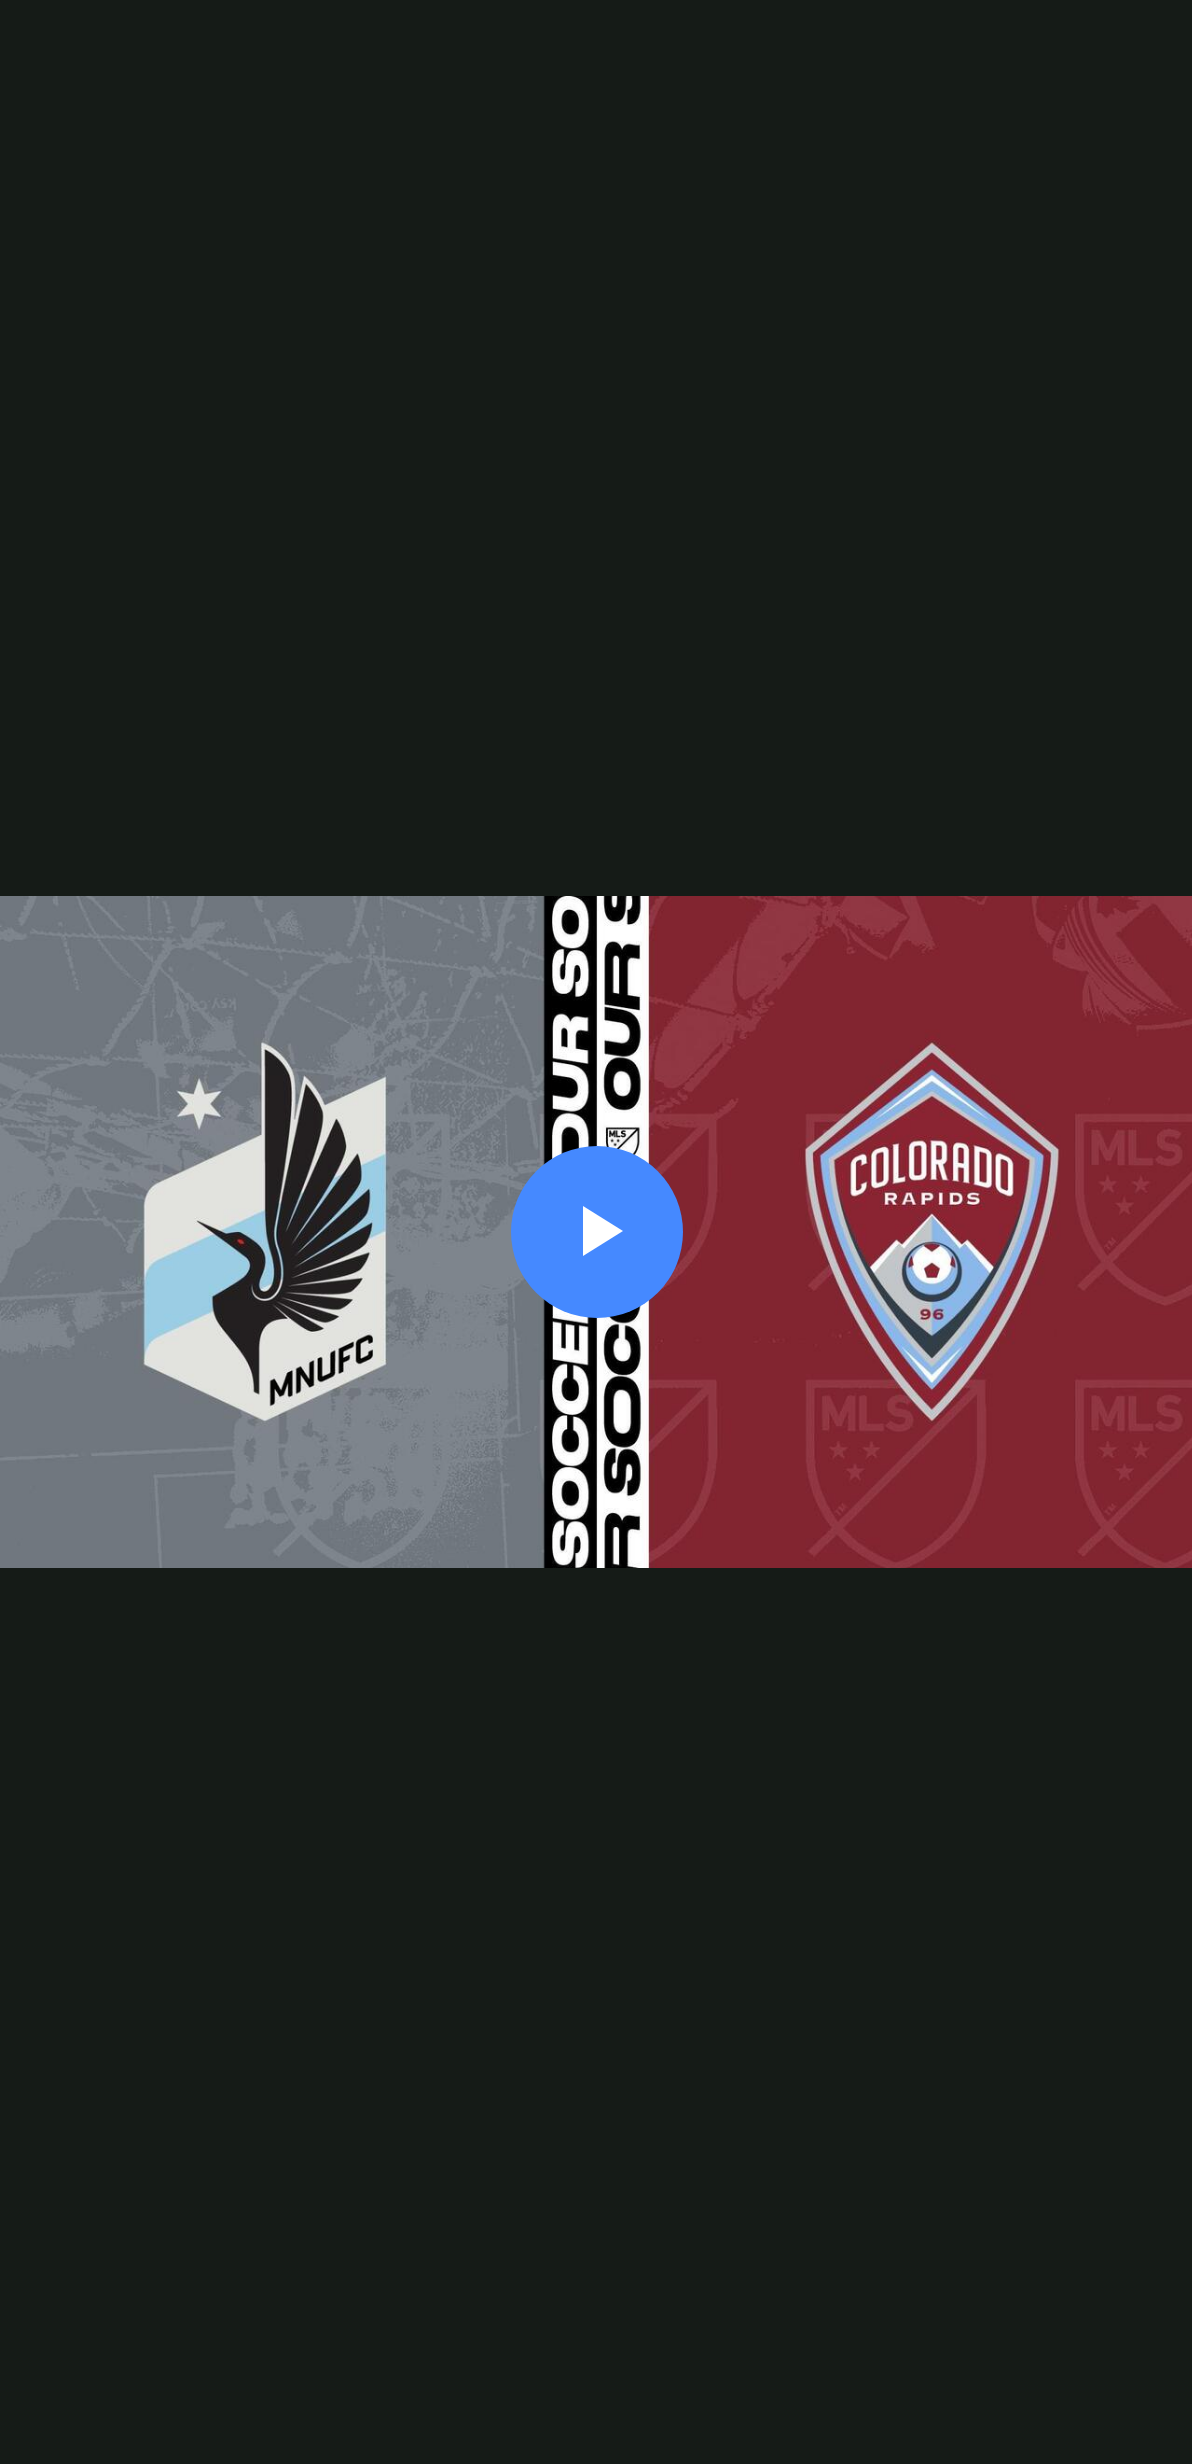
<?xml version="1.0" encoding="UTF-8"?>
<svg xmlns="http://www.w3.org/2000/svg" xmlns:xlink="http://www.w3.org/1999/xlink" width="1192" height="2464">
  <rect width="100%" height="100%" fill="#151b17" />
  <image x="0" y="896" width="1192" height="672" xlink:href="image1.png" />
  <circle cx="597" cy="1232" r="86" fill="#4589ff" />
  <path d="M 583 1206 v 50 l 40 -25 z" fill="#ffffff" />
</svg>
